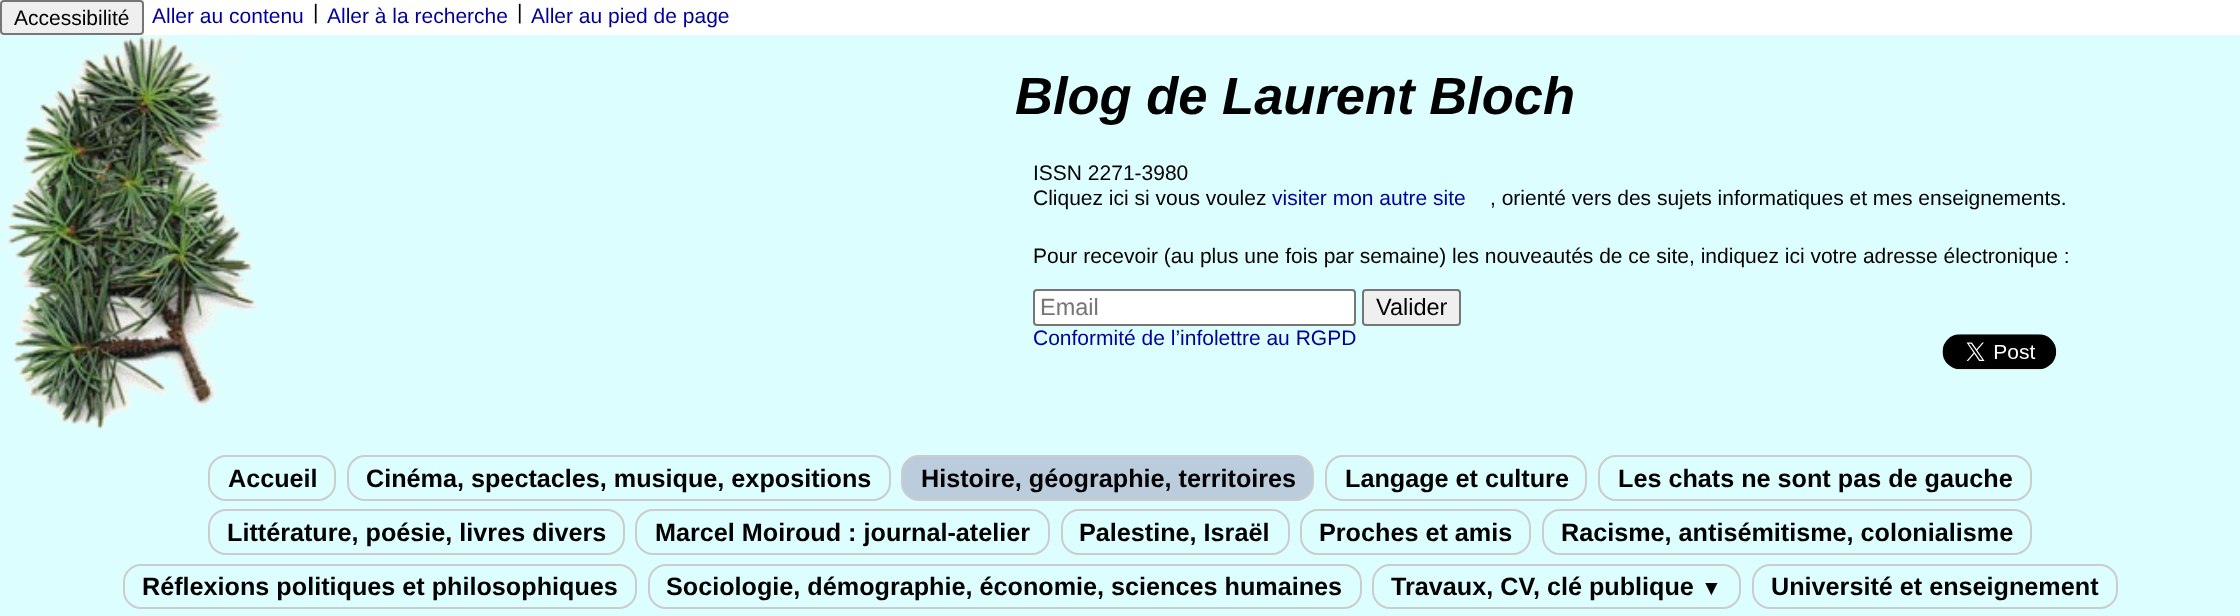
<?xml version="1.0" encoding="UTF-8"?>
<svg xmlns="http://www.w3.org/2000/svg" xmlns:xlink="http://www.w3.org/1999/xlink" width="2240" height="616">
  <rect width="100%" height="100%" fill="#ddfefe" />
  <rect width="2240" height="35" fill="#ffffff" />
  <rect x="1" y="1" width="142" height="33" rx="3" fill="#efefef" stroke="#767676" stroke-width="2" />
  <image x="0" y="35" width="265" height="394" xlink:href="image1.png" />
  <rect x="1034" y="290" width="321" height="35" rx="3" fill="#ffffff" stroke="#767676" stroke-width="2" />
  <rect x="1363" y="290" width="97" height="35" rx="3" fill="#efefef" stroke="#767676" stroke-width="2" />
  <image x="1942" y="334" width="115" height="36" xlink:href="image2.png" />
  <rect x="209" y="456" width="126" height="44" rx="17" fill="none" stroke="#cccccc" stroke-width="2" />
  <rect x="348" y="456" width="542" height="44" rx="17" fill="none" stroke="#cccccc" stroke-width="2" />
  <rect x="902" y="456" width="411" height="44" rx="17" fill="#bbccdd" stroke="#cccccc" stroke-width="2" />
  <rect x="1326" y="456" width="260" height="44" rx="17" fill="none" stroke="#cccccc" stroke-width="2" />
  <rect x="1599" y="456" width="432" height="44" rx="17" fill="none" stroke="#cccccc" stroke-width="2" />
  <rect x="209" y="510" width="415" height="44" rx="17" fill="none" stroke="#cccccc" stroke-width="2" />
  <rect x="636" y="510" width="413" height="44" rx="17" fill="none" stroke="#cccccc" stroke-width="2" />
  <rect x="1062" y="510" width="227" height="44" rx="17" fill="none" stroke="#cccccc" stroke-width="2" />
  <rect x="1301" y="510" width="229" height="44" rx="17" fill="none" stroke="#cccccc" stroke-width="2" />
  <rect x="1543" y="510" width="488" height="44" rx="17" fill="none" stroke="#cccccc" stroke-width="2" />
  <rect x="124" y="565" width="512" height="43" rx="17" fill="none" stroke="#cccccc" stroke-width="2" />
  <rect x="649" y="565" width="712" height="43" rx="17" fill="none" stroke="#cccccc" stroke-width="2" />
  <rect x="1373" y="565" width="367" height="43" rx="17" fill="none" stroke="#cccccc" stroke-width="2" />
  <rect x="1753" y="565" width="364" height="43" rx="17" fill="none" stroke="#cccccc" stroke-width="2" />
  <text x="14" y="25" style="font-family: Liberation Sans; font-size: 21px; fill: #000000">Accessibilité</text>
  <text x="152" y="23" style="font-family: Liberation Sans; font-size: 21px; fill: #000099">Aller au contenu</text>
  <text x="313" y="19" style="font-family: Liberation Sans; font-size: 21px; fill: #000000">|</text>
  <text x="327" y="23" style="font-family: Liberation Sans; font-size: 21px; fill: #000099">Aller à la recherche</text>
  <text x="517" y="19" style="font-family: Liberation Sans; font-size: 21px; fill: #000000">|</text>
  <text x="531" y="23" style="font-family: Liberation Sans; font-size: 21px; fill: #000099">Aller au pied de page</text>
  <text x="1015" y="114" style="font-family: Liberation Sans; font-size: 52.5px; font-weight: bold; font-style: italic; fill: #000000">Blog de Laurent Bloch</text>
  <text x="1033" y="180" style="font-family: Liberation Sans; font-size: 21px; fill: #000000">ISSN 2271-3980</text>
  <text x="1033" y="205" style="font-family: Liberation Sans; font-size: 21px; fill: #000000">Cliquez ici si vous voulez</text>
  <text x="1272" y="205" style="font-family: Liberation Sans; font-size: 21px; fill: #000099">visiter mon autre site</text>
  <text x="1490" y="205" style="font-family: Liberation Sans; font-size: 21px; fill: #000000">, orienté vers des sujets informatiques et mes enseignements.</text>
  <text x="1033" y="263" style="font-family: Liberation Sans; font-size: 21px; fill: #000000">Pour recevoir (au plus une fois par semaine) les nouveautés de ce site, indiquez ici votre adresse électronique :</text>
  <text x="1040" y="315" style="font-family: Liberation Sans; font-size: 23.5px; fill: #757575">Email</text>
  <text x="1376" y="315" style="font-family: Liberation Sans; font-size: 23.5px; fill: #000000">Valider</text>
  <text x="1033" y="345" style="font-family: Liberation Sans; font-size: 21px; fill: #000099">Conformité de l’infolettre au RGPD</text>
  <text x="228" y="487" style="font-family: Liberation Sans; font-size: 25.2px; font-weight: bold; fill: #000000">Accueil</text>
  <text x="366" y="487" style="font-family: Liberation Sans; font-size: 25.2px; font-weight: bold; fill: #000000">Cinéma, spectacles, musique, expositions</text>
  <text x="921" y="487" style="font-family: Liberation Sans; font-size: 25.2px; font-weight: bold; fill: #000000">Histoire, géographie, territoires</text>
  <text x="1345" y="487" style="font-family: Liberation Sans; font-size: 25.2px; font-weight: bold; fill: #000000">Langage et culture</text>
  <text x="1618" y="487" style="font-family: Liberation Sans; font-size: 25.2px; font-weight: bold; fill: #000000">Les chats ne sont pas de gauche</text>
  <text x="227" y="541" style="font-family: Liberation Sans; font-size: 25.2px; font-weight: bold; fill: #000000">Littérature, poésie, livres divers</text>
  <text x="655" y="541" style="font-family: Liberation Sans; font-size: 25.2px; font-weight: bold; fill: #000000">Marcel Moiroud : journal-atelier</text>
  <text x="1079" y="541" style="font-family: Liberation Sans; font-size: 25.2px; font-weight: bold; fill: #000000">Palestine, Israël</text>
  <text x="1319" y="541" style="font-family: Liberation Sans; font-size: 25.2px; font-weight: bold; fill: #000000">Proches et amis</text>
  <text x="1561" y="541" style="font-family: Liberation Sans; font-size: 25.2px; font-weight: bold; fill: #000000">Racisme, antisémitisme, colonialisme</text>
  <text x="142" y="595" style="font-family: Liberation Sans; font-size: 25.2px; font-weight: bold; fill: #000000">Réflexions politiques et philosophiques</text>
  <text x="666" y="595" style="font-family: Liberation Sans; font-size: 25.2px; font-weight: bold; fill: #000000">Sociologie, démographie, économie, sciences humaines</text>
  <text x="1391" y="595" style="font-family: Liberation Sans; font-size: 25.2px; font-weight: bold; fill: #000000">Travaux, CV, clé publique</text>
  <text x="1701" y="595" style="font-family: Liberation Sans; font-size: 21px; font-weight: bold; fill: #000000">▼</text>
  <text x="1771" y="595" style="font-family: Liberation Sans; font-size: 25.2px; font-weight: bold; fill: #000000">Université et enseignement</text>
</svg>
